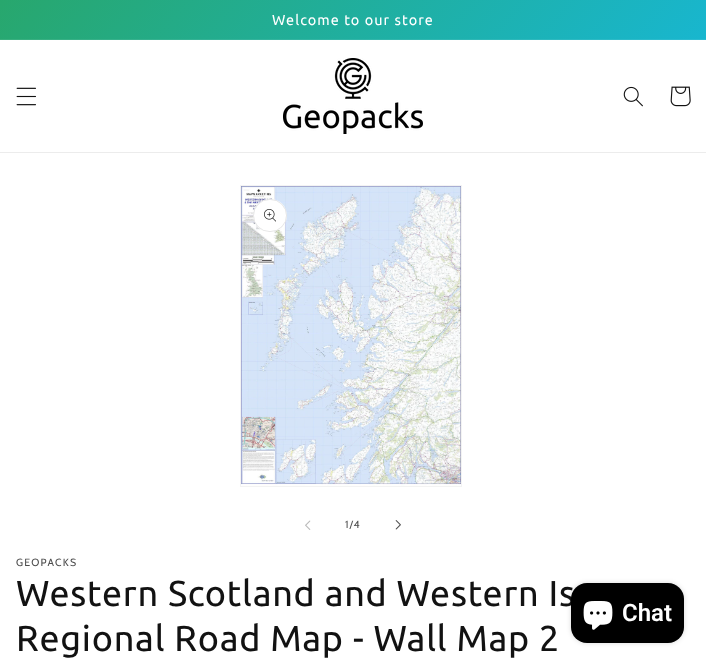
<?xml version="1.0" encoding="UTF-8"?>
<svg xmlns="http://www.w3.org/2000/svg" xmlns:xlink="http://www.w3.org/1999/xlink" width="706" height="664">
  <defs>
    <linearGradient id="g1" gradientUnits="userSpaceOnUse" x1="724" y1="643" x2="-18" y2="21"><stop offset="0.15" stop-color="#11bdfb" /><stop offset="1" stop-color="#28a76d" /></linearGradient>
    <linearGradient id="g2" gradientUnits="userSpaceOnUse" x1="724" y1="643" x2="-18" y2="21"><stop offset="0.15" stop-color="#24c2fb" /><stop offset="1" stop-color="#39ae79" /></linearGradient>
  </defs>
  <rect width="100%" height="100%" fill="#ffffff" />
  <rect width="706" height="39" fill="url(#g1)" />
  <rect y="39" width="706" height="1" fill="url(#g2)" />
  <rect y="152" width="706" height="1" fill="#ececec" />
  <image x="16" y="87" width="20" height="19" xlink:href="image1.png" />
  <image x="283" y="58" width="140" height="76" xlink:href="image2.png" />
  <image x="623" y="86" width="20" height="21" xlink:href="image3.png" />
  <image x="670" y="86" width="21" height="21" xlink:href="image4.png" />
  <rect x="240.5" y="185.5" width="221" height="301" fill="none" stroke="#f3f3f3" />
  <image x="241" y="186" width="220" height="300" xlink:href="image5.png" />
  <rect x="253" y="199" width="34" height="33" rx="16.5" fill="#ffffff" />
  <rect x="253.5" y="199.5" width="33" height="32" rx="16" fill="none" stroke="#121212" stroke-opacity="0.1" />
  <image x="264" y="209" width="12" height="13" xlink:href="image6.png" />
  <image x="305" y="520" width="6" height="10" xlink:href="image7.png" />
  <image x="395" y="520" width="6" height="10" xlink:href="image8.png" />
  <rect x="571" y="583" width="113" height="60" rx="16" fill="#000000" fill-opacity="0.15" filter="blur(2.5px)" />
  <text x="272" y="25" style="font-family: Ubuntu; font-size: 14.4px; letter-spacing: 1.05px; fill: #ffffff">Welcome to our store</text>
  <text x="345" y="528" style="font-family: Cabin; font-size: 10.5px; letter-spacing: 1px; fill: #4d4d4d">1/4</text>
  <text x="16" y="566" style="font-family: Cabin; font-size: 10.5px; letter-spacing: 1.25px; fill: #4d4d4d">GEOPACKS</text>
  <text x="16" y="606" style="font-family: Ubuntu; font-size: 36px; letter-spacing: 0.75px; fill: #121212">Western Scotland and Western Is</text>
  <text x="16" y="651" style="font-family: Ubuntu; font-size: 36px; letter-spacing: 0.75px; fill: #121212">Regional Road Map - Wall Map 2</text>
  <rect x="571" y="583" width="113" height="60" rx="16" fill="#000000" />
  <image x="583" y="601" width="30" height="29" xlink:href="image9.png" />
  <text x="622" y="621" style="font-family: Roboto; font-size: 24px; font-weight: 600; fill: #ffffff">Chat</text>
</svg>
